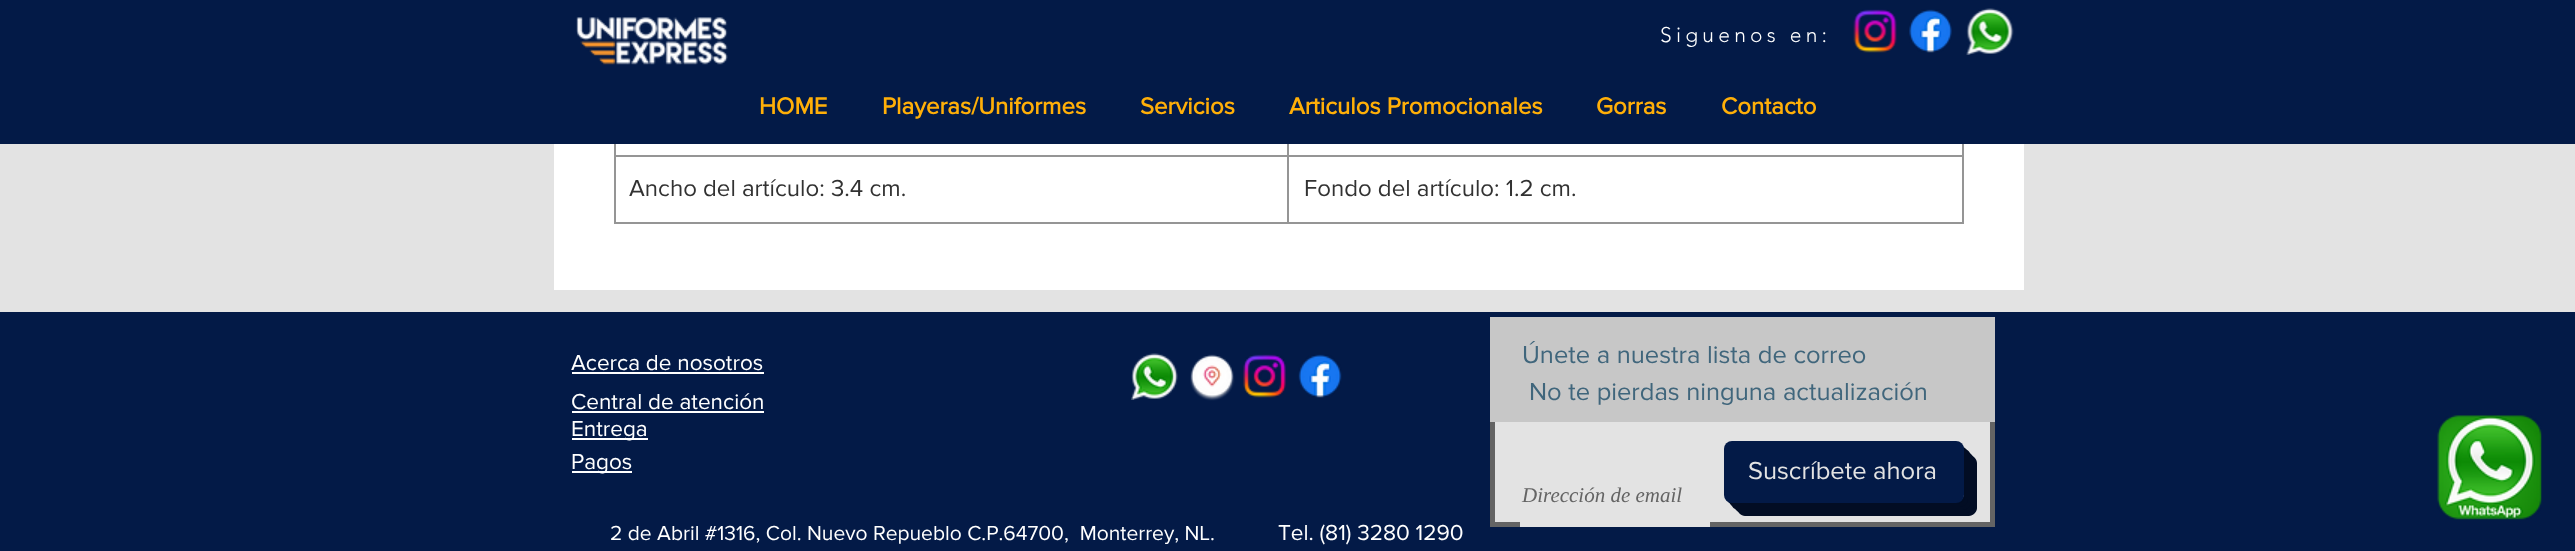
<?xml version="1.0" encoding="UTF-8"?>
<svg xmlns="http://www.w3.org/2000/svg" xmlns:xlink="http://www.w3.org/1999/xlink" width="2575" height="551">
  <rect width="100%" height="100%" fill="#e3e3e3" />
  <rect width="2575" height="144" fill="#031a47" />
  <image x="576" y="17" width="152" height="48" xlink:href="image1.png" />
  <image x="1853" y="9" width="44" height="44" xlink:href="image2.png" />
  <image x="1909" y="9" width="43" height="44" xlink:href="image3.png" />
  <image x="1966" y="8" width="48" height="47" xlink:href="image4.png" />
  <rect x="554" y="144" width="1470" height="146" fill="#ffffff" />
  <rect x="1287" y="155" width="677" height="2" fill="#959595" />
  <rect x="1962" y="144" width="2" height="80" fill="#959595" />
  <rect x="1287" y="222" width="677" height="2" fill="#959595" />
  <rect x="1287" y="155" width="2" height="69" fill="#959595" />
  <rect x="614" y="155" width="675" height="2" fill="#959595" />
  <rect x="1287" y="144" width="2" height="12" fill="#959595" />
  <rect x="614" y="222" width="675" height="2" fill="#959595" />
  <rect x="614" y="144" width="2" height="80" fill="#959595" />
  <rect y="312" width="2575" height="239" fill="#031a47" />
  <rect x="572" y="372" width="192" height="2" fill="#ffffff" />
  <image x="1131" y="353" width="47" height="47" xlink:href="image5.png" />
  <image x="1190" y="354" width="45" height="47" xlink:href="image6.png" />
  <image x="1243" y="354" width="43" height="44" xlink:href="image7.png" />
  <image x="1298" y="354" width="44" height="44" xlink:href="image8.png" />
  <rect x="1495" y="422" width="495" height="100" fill="#e3e3e3" />
  <rect x="1492.5" y="319.5" width="500" height="205" fill="none" stroke="#646464" stroke-width="5" />
  <rect x="1490" y="317" width="505" height="105" fill="#c7c7c7" />
  <path d="M 1737 502 v 6 c 0 4 4 8 8 8 h 224 c 4 0 8 -4 8 -8 v -45 c 0 -4 -4 -8 -8 -8 h -5 v 40 c 0 4 -4 7 -8 7 z" fill="#020d24" />
  <path d="M 1734 502 v 3 c 0 4 4 8 8 8 h 224 c 4 0 8 -4 8 -8 v -45 c 0 -4 -4 -8 -8 -8 h -2 v 43 c 0 4 -4 7 -8 7 z" fill="#020d24" />
  <path d="M 1731 502 c 0 5 4 8 8 8 h 224 c 4 0 8 -4 8 -8 v -45 c 0 -4 -3 -8 -7 -8 v 46 c 0 4 -4 7 -8 7 z" fill="#020d24" />
  <path d="M 1729 502 c 1 3 4 5 7 5 h 224 c 4 0 8 -4 8 -8 v -45 c 0 -3 -2 -6 -5 -7 l 1 48 c 0 4 -4 7 -8 7 h -225 z" fill="#020d24" />
  <path d="M 1727 501 c 2 2 4 3 6 3 h 224 c 4 0 8 -4 8 -8 v -45 c 0 -2 -1 -4 -2 -5 l 1 2 v 47 c 0 4 -4 7 -8 7 h -225 c -1 0 -3 0 -4 -1 z" fill="#020d24" />
  <rect x="1724" y="441" width="240" height="62" rx="8" fill="#031a47" />
  <rect x="1520" y="522" width="190" height="5" fill="#e3e3e3" />
  <rect x="572" y="411" width="192" height="2" fill="#ffffff" />
  <rect x="572" y="438" width="76" height="2" fill="#ffffff" />
  <rect x="572" y="471" width="60" height="2" fill="#ffffff" />
  <image x="2437" y="415" width="105" height="105" xlink:href="image9.png" />
  <text x="1660" y="42" style="font-family: 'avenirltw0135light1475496'; font-size: 21px; font-weight: 300; letter-spacing: 4.25px; fill: #ffffff">Siguenos en:</text>
  <text x="759" y="114" style="font-family: 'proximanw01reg'; font-size: 24px; font-weight: bold; fill: #ffaf08">HOME</text>
  <text x="882" y="114" style="font-family: 'proximanw01reg'; font-size: 24px; font-weight: bold; fill: #ffaf08">Playeras/Uniformes</text>
  <text x="1140" y="114" style="font-family: 'proximanw01reg'; font-size: 24px; font-weight: bold; fill: #ffaf08">Servicios</text>
  <text x="1289" y="114" style="font-family: 'proximanw01reg'; font-size: 24px; font-weight: bold; fill: #ffaf08">Articulos Promocionales</text>
  <text x="1596" y="114" style="font-family: 'proximanw01reg'; font-size: 24px; font-weight: bold; fill: #ffaf08">Gorras</text>
  <text x="1721" y="114" style="font-family: 'proximanw01reg'; font-size: 24px; font-weight: bold; fill: #ffaf08">Contacto</text>
  <text x="629" y="196" style="font-family: 'proximanw01reg'; font-size: 24px; fill: #323232">Ancho del artículo: 3.4 cm.</text>
  <text x="1304" y="196" style="font-family: 'proximanw01reg'; font-size: 24px; fill: #323232">Fondo del artículo: 1.2 cm.</text>
  <text x="571" y="370" style="font-family: 'proximanw01reg'; font-size: 22.5px; fill: #ffffff">Acerca de nosotros</text>
  <text x="1522" y="363" style="font-family: 'proximanw01reg'; font-size: 25.5px; fill: #40667c">Únete a nuestra lista de correo</text>
  <text x="1529" y="400" style="font-family: 'proximanw01reg'; font-size: 25.5px; fill: #40667c">No te pierdas ninguna actualización</text>
  <text x="1748" y="479" style="font-family: 'proximanw01reg'; font-size: 25.5px; fill: #e3e3e3">Suscríbete ahora</text>
  <text x="1522" y="502" style="font-family: Liberation Serif; font-size: 21px; font-style: italic; fill: #646464">Dirección de email</text>
  <text x="571" y="409" style="font-family: 'proximanw01reg'; font-size: 22.5px; fill: #ffffff">Central de atención</text>
  <text x="571" y="436" style="font-family: 'proximanw01reg'; font-size: 22.5px; fill: #ffffff">Entrega</text>
  <text x="571" y="469" style="font-family: 'proximanw01reg'; font-size: 22.5px; fill: #ffffff">Pagos</text>
  <text x="610" y="540" style="font-family: 'proximanw01reg'; font-size: 21px; fill: #ffffff" xml:space="preserve">2 de Abril #1316, Col. Nuevo Repueblo C.P.64700,  Monterrey, NL.</text>
  <text x="1278" y="540" style="font-family: 'proximanw01reg'; font-size: 22.5px; fill: #ffffff">Tel. (81) 3280 1290</text>
</svg>
